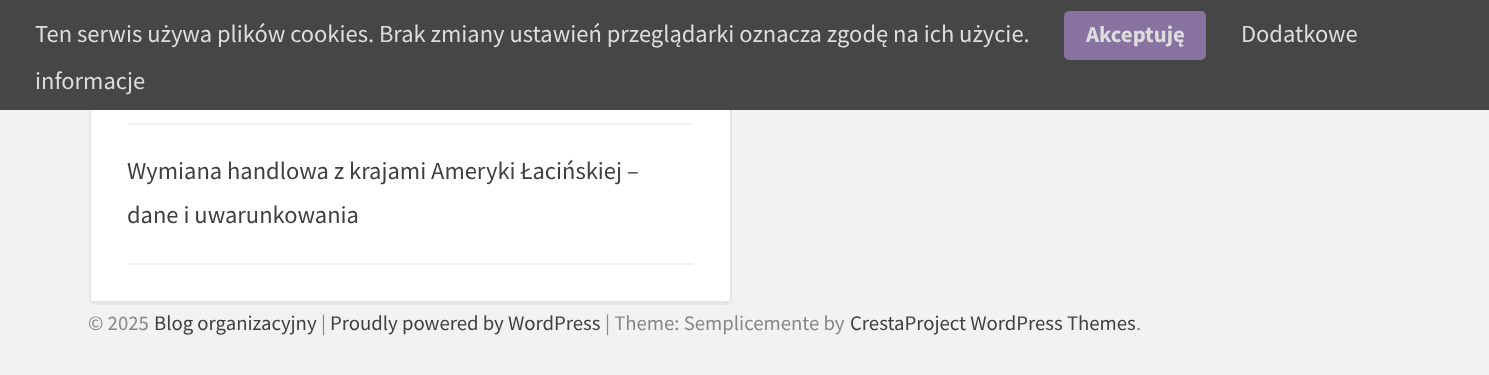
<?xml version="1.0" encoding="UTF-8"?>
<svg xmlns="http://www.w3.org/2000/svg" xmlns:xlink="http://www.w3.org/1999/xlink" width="1489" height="375">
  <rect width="100%" height="100%" fill="#f2f2f2" />
  <rect x="89" y="-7" width="643" height="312" rx="7" fill="#ffffff" />
  <rect x="90" y="-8" width="641" height="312" rx="6" fill="none" stroke="#000000" stroke-opacity="0.1" stroke-width="2" />
  <rect width="1489" height="110" fill="#464646" />
  <rect x="1064" y="11" width="142" height="49" rx="5" fill="#8872a0" />
  <rect x="93" y="301" width="635" height="2" fill="#000000" fill-opacity="0.1" />
  <rect x="128" y="123" width="565" height="2" fill="#f2f2f2" />
  <rect x="128" y="263" width="565" height="2" fill="#f2f2f2" />
  <text x="35" y="42" style="font-family: Source Sans Pro; font-size: 24.5px; fill: #dddddd">Ten serwis używa plików cookies. Brak zmiany ustawień przeglądarki oznacza zgodę na ich użycie.</text>
  <text x="1086" y="42" style="font-family: Source Sans Pro; font-size: 22.75px; font-weight: bold; fill: #dddddd">Akceptuję</text>
  <text x="1241" y="42" style="font-family: Source Sans Pro; font-size: 24.5px; fill: #dddddd">Dodatkowe</text>
  <text x="35" y="89" style="font-family: Source Sans Pro; font-size: 24.5px; fill: #dddddd">informacje</text>
  <text x="127" y="179" style="font-family: Source Sans Pro; font-size: 24.5px; fill: #404040">Wymiana handlowa z krajami Ameryki Łacińskiej –</text>
  <text x="127" y="223" style="font-family: Source Sans Pro; font-size: 24.5px; fill: #404040">dane i uwarunkowania</text>
  <text x="88" y="330" style="font-family: Source Sans Pro; font-size: 20.75px; fill: #888888">© 2025</text>
  <text x="154" y="330" style="font-family: Source Sans Pro; font-size: 20.75px; fill: #404040">Blog organizacyjny</text>
  <text x="321" y="330" style="font-family: Source Sans Pro; font-size: 20.75px; fill: #888888">|</text>
  <text x="330" y="330" style="font-family: Source Sans Pro; font-size: 20.75px; fill: #404040">Proudly powered by WordPress</text>
  <text x="605" y="330" style="font-family: Source Sans Pro; font-size: 20.75px; fill: #888888">| Theme: Semplicemente by</text>
  <text x="850" y="330" style="font-family: Source Sans Pro; font-size: 20.75px; fill: #404040">CrestaProject WordPress Themes</text>
  <text x="1136" y="330" style="font-family: Source Sans Pro; font-size: 20.75px; fill: #888888">.</text>
</svg>
